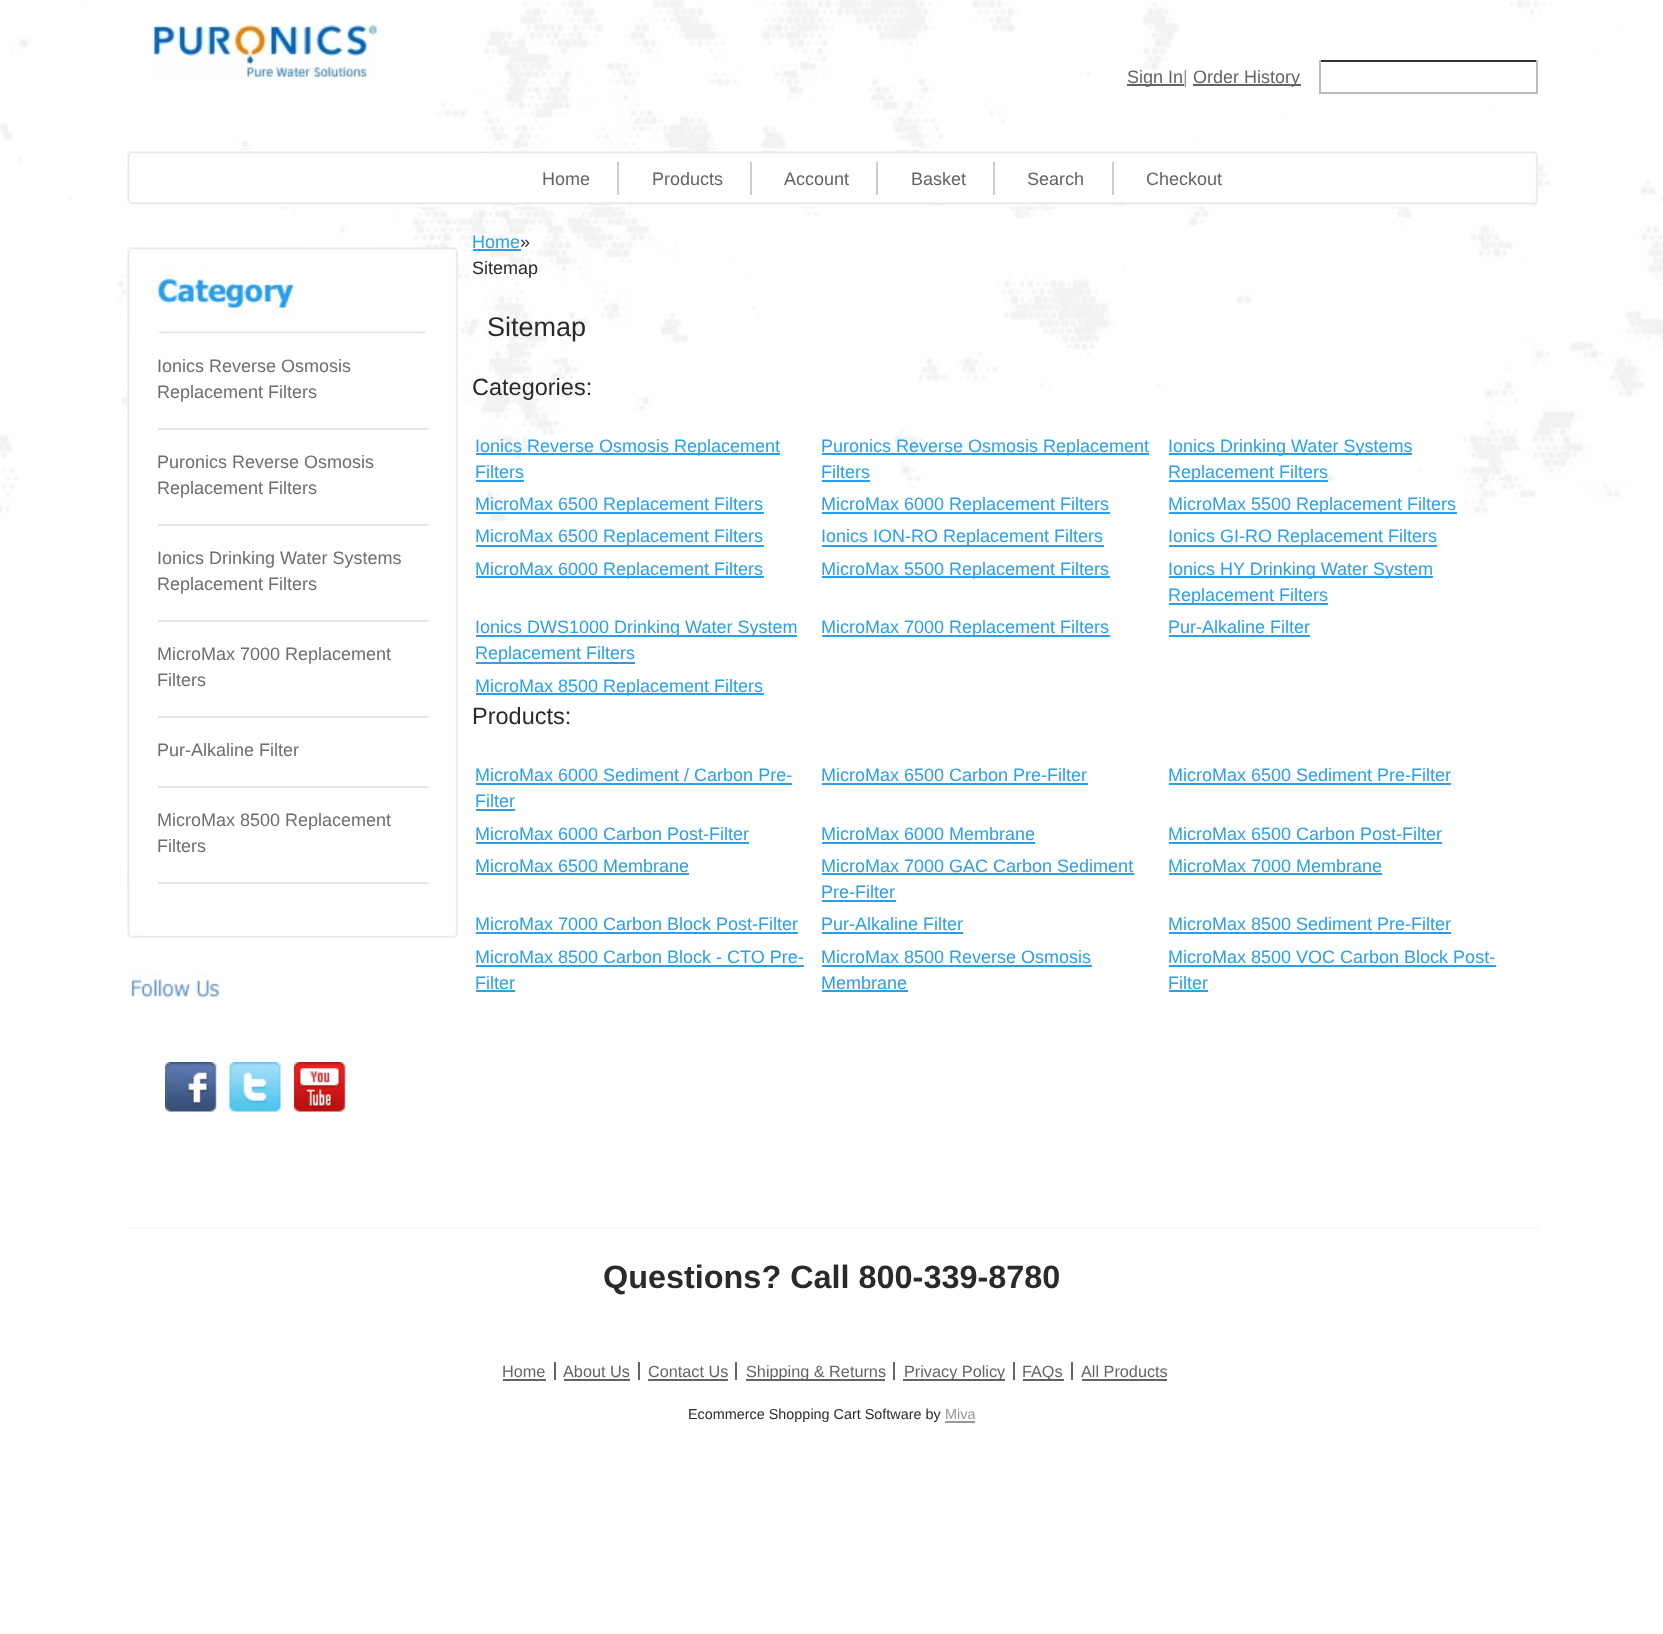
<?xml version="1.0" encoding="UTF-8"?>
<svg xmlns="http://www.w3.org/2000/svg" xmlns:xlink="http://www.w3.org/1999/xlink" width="1663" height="1634">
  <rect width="100%" height="100%" fill="#ffffff" />
  <image x="0" y="0" width="1663" height="522" xlink:href="image1.png" />
  <image x="152" y="23" width="226" height="56" xlink:href="image2.png" />
  <rect x="1127" y="84" width="57" height="2" fill="#646464" />
  <rect x="1193" y="84" width="108" height="2" fill="#646464" />
  <rect x="1319" y="60" width="219" height="2" fill="#333333" />
  <rect x="1536" y="60" width="2" height="33" fill="#bbbbbb" />
  <rect x="1319" y="92" width="219" height="2" fill="#bbbbbb" />
  <rect x="1319" y="60" width="2" height="33" fill="#bbbbbb" />
  <rect x="1537" y="163" width="1" height="32" fill="#ffffff" />
  <image x="127" y="150" width="1411" height="57" xlink:href="image3.png" />
  <rect x="617" y="162" width="2" height="33" fill="#cccccc" />
  <rect x="750" y="162" width="2" height="33" fill="#cccccc" />
  <rect x="876" y="162" width="2" height="33" fill="#cccccc" />
  <rect x="993" y="162" width="2" height="33" fill="#cccccc" />
  <rect x="1112" y="162" width="2" height="33" fill="#cccccc" />
  <image x="127" y="244" width="331" height="89" xlink:href="image4.png" />
  <image x="127" y="871" width="331" height="67" xlink:href="image5.png" />
  <rect x="128" y="333" width="330" height="551" fill="#ffffff" />
  <image x="127" y="333" width="331" height="551" xlink:href="image6.png" />
  <rect x="158" y="428" width="270" height="2" fill="#e5e5e5" />
  <rect x="158" y="524" width="270" height="2" fill="#e5e5e5" />
  <rect x="158" y="620" width="270" height="2" fill="#e5e5e5" />
  <rect x="158" y="716" width="270" height="2" fill="#e5e5e5" />
  <rect x="158" y="786" width="270" height="2" fill="#e5e5e5" />
  <rect x="158" y="882" width="270" height="2" fill="#e5e5e5" />
  <image x="127" y="972" width="96" height="31" xlink:href="image7.png" />
  <image x="165" y="1062" width="52" height="50" xlink:href="image8.png" />
  <image x="229" y="1062" width="52" height="50" xlink:href="image9.png" />
  <image x="294" y="1062" width="52" height="50" xlink:href="image10.png" />
  <rect x="473" y="249" width="48" height="2" fill="#2ba0e8" />
  <rect x="476" y="453" width="304" height="2" fill="#2ba0e8" />
  <rect x="476" y="480" width="48" height="2" fill="#2ba0e8" />
  <rect x="822" y="453" width="327" height="2" fill="#2ba0e8" />
  <rect x="822" y="480" width="48" height="2" fill="#2ba0e8" />
  <rect x="1169" y="453" width="243" height="2" fill="#2ba0e8" />
  <rect x="1169" y="480" width="159" height="2" fill="#2ba0e8" />
  <rect x="476" y="512" width="288" height="2" fill="#2ba0e8" />
  <rect x="822" y="512" width="288" height="2" fill="#2ba0e8" />
  <rect x="1169" y="512" width="288" height="2" fill="#2ba0e8" />
  <rect x="476" y="545" width="288" height="2" fill="#2ba0e8" />
  <rect x="822" y="545" width="282" height="2" fill="#2ba0e8" />
  <rect x="1169" y="545" width="268" height="2" fill="#2ba0e8" />
  <rect x="476" y="576" width="288" height="2" fill="#2ba0e8" />
  <rect x="822" y="576" width="288" height="2" fill="#2ba0e8" />
  <rect x="1169" y="576" width="264" height="2" fill="#2ba0e8" />
  <rect x="1169" y="603" width="159" height="2" fill="#2ba0e8" />
  <rect x="476" y="635" width="321" height="2" fill="#2ba0e8" />
  <rect x="476" y="662" width="159" height="2" fill="#2ba0e8" />
  <rect x="822" y="635" width="288" height="2" fill="#2ba0e8" />
  <rect x="1169" y="635" width="141" height="2" fill="#2ba0e8" />
  <rect x="476" y="693" width="288" height="2" fill="#2ba0e8" />
  <rect x="476" y="783" width="316" height="2" fill="#2ba0e8" />
  <rect x="476" y="809" width="39" height="2" fill="#2ba0e8" />
  <rect x="822" y="783" width="266" height="2" fill="#2ba0e8" />
  <rect x="1169" y="783" width="282" height="2" fill="#2ba0e8" />
  <rect x="476" y="842" width="273" height="2" fill="#2ba0e8" />
  <rect x="822" y="842" width="213" height="2" fill="#2ba0e8" />
  <rect x="1169" y="842" width="273" height="2" fill="#2ba0e8" />
  <rect x="476" y="873" width="213" height="2" fill="#2ba0e8" />
  <rect x="822" y="873" width="312" height="2" fill="#2ba0e8" />
  <rect x="822" y="900" width="74" height="2" fill="#2ba0e8" />
  <rect x="1169" y="873" width="213" height="2" fill="#2ba0e8" />
  <rect x="476" y="932" width="322" height="2" fill="#2ba0e8" />
  <rect x="822" y="932" width="141" height="2" fill="#2ba0e8" />
  <rect x="1169" y="932" width="282" height="2" fill="#2ba0e8" />
  <rect x="476" y="965" width="328" height="2" fill="#2ba0e8" />
  <rect x="476" y="990" width="39" height="2" fill="#2ba0e8" />
  <rect x="822" y="965" width="270" height="2" fill="#2ba0e8" />
  <rect x="822" y="990" width="86" height="2" fill="#2ba0e8" />
  <rect x="1169" y="965" width="327" height="2" fill="#2ba0e8" />
  <rect x="1169" y="990" width="39" height="2" fill="#2ba0e8" />
  <rect x="128" y="1227" width="1410" height="2" fill="#f7f7f7" />
  <rect x="503" y="1379" width="43" height="2" fill="#646464" />
  <rect x="554" y="1362" width="2" height="18" fill="#646464" />
  <rect x="564" y="1379" width="66" height="2" fill="#646464" />
  <rect x="638" y="1362" width="2" height="18" fill="#646464" />
  <rect x="648" y="1379" width="80" height="2" fill="#646464" />
  <rect x="735" y="1362" width="2" height="18" fill="#646464" />
  <rect x="746" y="1379" width="139" height="2" fill="#646464" />
  <rect x="893" y="1362" width="2" height="18" fill="#646464" />
  <rect x="903" y="1379" width="102" height="2" fill="#646464" />
  <rect x="1013" y="1362" width="2" height="18" fill="#646464" />
  <rect x="1023" y="1379" width="41" height="2" fill="#646464" />
  <rect x="1071" y="1362" width="2" height="18" fill="#646464" />
  <rect x="1082" y="1379" width="85" height="2" fill="#646464" />
  <rect x="945" y="1421" width="30" height="2" fill="#999999" />
  <text x="1127" y="83" style="font-family: Liberation Sans; font-size: 18px; fill: #646464">Sign In</text>
  <text x="1183" y="83" style="font-family: Liberation Sans; font-size: 18px; fill: #999999">|</text>
  <text x="1193" y="83" style="font-family: Liberation Sans; font-size: 18px; fill: #646464">Order History</text>
  <text x="542" y="185" style="font-family: Liberation Sans; font-size: 18px; fill: #646464">Home</text>
  <text x="652" y="185" style="font-family: Liberation Sans; font-size: 18px; fill: #646464">Products</text>
  <text x="784" y="185" style="font-family: Liberation Sans; font-size: 18px; fill: #646464">Account</text>
  <text x="911" y="185" style="font-family: Liberation Sans; font-size: 18px; fill: #646464">Basket</text>
  <text x="1027" y="185" style="font-family: Liberation Sans; font-size: 18px; fill: #646464">Search</text>
  <text x="1146" y="185" style="font-family: Liberation Sans; font-size: 18px; fill: #646464">Checkout</text>
  <text x="157" y="372" style="font-family: Liberation Sans; font-size: 18px; fill: #6e6e6e">Ionics Reverse Osmosis</text>
  <text x="157" y="398" style="font-family: Liberation Sans; font-size: 18px; fill: #6e6e6e">Replacement Filters</text>
  <text x="157" y="468" style="font-family: Liberation Sans; font-size: 18px; fill: #6e6e6e">Puronics Reverse Osmosis</text>
  <text x="157" y="494" style="font-family: Liberation Sans; font-size: 18px; fill: #6e6e6e">Replacement Filters</text>
  <text x="157" y="564" style="font-family: Liberation Sans; font-size: 18px; fill: #6e6e6e">Ionics Drinking Water Systems</text>
  <text x="157" y="590" style="font-family: Liberation Sans; font-size: 18px; fill: #6e6e6e">Replacement Filters</text>
  <text x="157" y="660" style="font-family: Liberation Sans; font-size: 18px; fill: #6e6e6e">MicroMax 7000 Replacement</text>
  <text x="157" y="686" style="font-family: Liberation Sans; font-size: 18px; fill: #6e6e6e">Filters</text>
  <text x="157" y="756" style="font-family: Liberation Sans; font-size: 18px; fill: #6e6e6e">Pur-Alkaline Filter</text>
  <text x="157" y="826" style="font-family: Liberation Sans; font-size: 18px; fill: #6e6e6e">MicroMax 8500 Replacement</text>
  <text x="157" y="852" style="font-family: Liberation Sans; font-size: 18px; fill: #6e6e6e">Filters</text>
  <text x="472" y="248" style="font-family: Liberation Sans; font-size: 18px; fill: #2ba0e8">Home</text>
  <text x="520" y="248" style="font-family: Liberation Sans; font-size: 18px; fill: #2b2a2a">»</text>
  <text x="472" y="274" style="font-family: Liberation Sans; font-size: 18px; fill: #2b2a2a">Sitemap</text>
  <text x="487" y="336" style="font-family: Liberation Sans; font-size: 27px; fill: #2b2a2a">Sitemap</text>
  <text x="472" y="395" style="font-family: Liberation Sans; font-size: 23.5px; fill: #2b2a2a">Categories:</text>
  <text x="475" y="452" style="font-family: Liberation Sans; font-size: 18px; fill: #2ba0e8">Ionics Reverse Osmosis Replacement</text>
  <text x="475" y="478" style="font-family: Liberation Sans; font-size: 18px; fill: #2ba0e8">Filters</text>
  <text x="821" y="452" style="font-family: Liberation Sans; font-size: 18px; fill: #2ba0e8">Puronics Reverse Osmosis Replacement</text>
  <text x="821" y="478" style="font-family: Liberation Sans; font-size: 18px; fill: #2ba0e8">Filters</text>
  <text x="1168" y="452" style="font-family: Liberation Sans; font-size: 18px; fill: #2ba0e8">Ionics Drinking Water Systems</text>
  <text x="1168" y="478" style="font-family: Liberation Sans; font-size: 18px; fill: #2ba0e8">Replacement Filters</text>
  <text x="475" y="510" style="font-family: Liberation Sans; font-size: 18px; fill: #2ba0e8">MicroMax 6500 Replacement Filters</text>
  <text x="821" y="510" style="font-family: Liberation Sans; font-size: 18px; fill: #2ba0e8">MicroMax 6000 Replacement Filters</text>
  <text x="1168" y="510" style="font-family: Liberation Sans; font-size: 18px; fill: #2ba0e8">MicroMax 5500 Replacement Filters</text>
  <text x="475" y="542" style="font-family: Liberation Sans; font-size: 18px; fill: #2ba0e8">MicroMax 6500 Replacement Filters</text>
  <text x="821" y="542" style="font-family: Liberation Sans; font-size: 18px; fill: #2ba0e8">Ionics ION-RO Replacement Filters</text>
  <text x="1168" y="542" style="font-family: Liberation Sans; font-size: 18px; fill: #2ba0e8">Ionics GI-RO Replacement Filters</text>
  <text x="475" y="575" style="font-family: Liberation Sans; font-size: 18px; fill: #2ba0e8">MicroMax 6000 Replacement Filters</text>
  <text x="821" y="575" style="font-family: Liberation Sans; font-size: 18px; fill: #2ba0e8">MicroMax 5500 Replacement Filters</text>
  <text x="1168" y="575" style="font-family: Liberation Sans; font-size: 18px; fill: #2ba0e8">Ionics HY Drinking Water System</text>
  <text x="1168" y="601" style="font-family: Liberation Sans; font-size: 18px; fill: #2ba0e8">Replacement Filters</text>
  <text x="475" y="633" style="font-family: Liberation Sans; font-size: 18px; fill: #2ba0e8">Ionics DWS1000 Drinking Water System</text>
  <text x="475" y="659" style="font-family: Liberation Sans; font-size: 18px; fill: #2ba0e8">Replacement Filters</text>
  <text x="821" y="633" style="font-family: Liberation Sans; font-size: 18px; fill: #2ba0e8">MicroMax 7000 Replacement Filters</text>
  <text x="1168" y="633" style="font-family: Liberation Sans; font-size: 18px; fill: #2ba0e8">Pur-Alkaline Filter</text>
  <text x="475" y="692" style="font-family: Liberation Sans; font-size: 18px; fill: #2ba0e8">MicroMax 8500 Replacement Filters</text>
  <text x="472" y="724" style="font-family: Liberation Sans; font-size: 23.5px; fill: #2b2a2a">Products:</text>
  <text x="475" y="781" style="font-family: Liberation Sans; font-size: 18px; fill: #2ba0e8">MicroMax 6000 Sediment / Carbon Pre-</text>
  <text x="475" y="807" style="font-family: Liberation Sans; font-size: 18px; fill: #2ba0e8">Filter</text>
  <text x="821" y="781" style="font-family: Liberation Sans; font-size: 18px; fill: #2ba0e8">MicroMax 6500 Carbon Pre-Filter</text>
  <text x="1168" y="781" style="font-family: Liberation Sans; font-size: 18px; fill: #2ba0e8">MicroMax 6500 Sediment Pre-Filter</text>
  <text x="475" y="840" style="font-family: Liberation Sans; font-size: 18px; fill: #2ba0e8">MicroMax 6000 Carbon Post-Filter</text>
  <text x="821" y="840" style="font-family: Liberation Sans; font-size: 18px; fill: #2ba0e8">MicroMax 6000 Membrane</text>
  <text x="1168" y="840" style="font-family: Liberation Sans; font-size: 18px; fill: #2ba0e8">MicroMax 6500 Carbon Post-Filter</text>
  <text x="475" y="872" style="font-family: Liberation Sans; font-size: 18px; fill: #2ba0e8">MicroMax 6500 Membrane</text>
  <text x="821" y="872" style="font-family: Liberation Sans; font-size: 18px; fill: #2ba0e8">MicroMax 7000 GAC Carbon Sediment</text>
  <text x="821" y="898" style="font-family: Liberation Sans; font-size: 18px; fill: #2ba0e8">Pre-Filter</text>
  <text x="1168" y="872" style="font-family: Liberation Sans; font-size: 18px; fill: #2ba0e8">MicroMax 7000 Membrane</text>
  <text x="475" y="930" style="font-family: Liberation Sans; font-size: 18px; fill: #2ba0e8">MicroMax 7000 Carbon Block Post-Filter</text>
  <text x="821" y="930" style="font-family: Liberation Sans; font-size: 18px; fill: #2ba0e8">Pur-Alkaline Filter</text>
  <text x="1168" y="930" style="font-family: Liberation Sans; font-size: 18px; fill: #2ba0e8">MicroMax 8500 Sediment Pre-Filter</text>
  <text x="475" y="963" style="font-family: Liberation Sans; font-size: 18px; fill: #2ba0e8">MicroMax 8500 Carbon Block - CTO Pre-</text>
  <text x="475" y="989" style="font-family: Liberation Sans; font-size: 18px; fill: #2ba0e8">Filter</text>
  <text x="821" y="963" style="font-family: Liberation Sans; font-size: 18px; fill: #2ba0e8">MicroMax 8500 Reverse Osmosis</text>
  <text x="821" y="989" style="font-family: Liberation Sans; font-size: 18px; fill: #2ba0e8">Membrane</text>
  <text x="1168" y="963" style="font-family: Liberation Sans; font-size: 18px; fill: #2ba0e8">MicroMax 8500 VOC Carbon Block Post-</text>
  <text x="1168" y="989" style="font-family: Liberation Sans; font-size: 18px; fill: #2ba0e8">Filter</text>
  <text x="603" y="1288" style="font-family: Liberation Sans; font-size: 32.4px; font-weight: bold; fill: #2b2a2a">Questions? Call 800-339-8780</text>
  <text x="502" y="1377" style="font-family: Liberation Sans; font-size: 16.25px; fill: #646464">Home</text>
  <text x="563" y="1377" style="font-family: Liberation Sans; font-size: 16.25px; fill: #646464">About Us</text>
  <text x="648" y="1377" style="font-family: Liberation Sans; font-size: 16.25px; fill: #646464">Contact Us</text>
  <text x="746" y="1377" style="font-family: Liberation Sans; font-size: 16.25px; fill: #646464">Shipping &amp; Returns</text>
  <text x="904" y="1377" style="font-family: Liberation Sans; font-size: 16.25px; fill: #646464">Privacy Policy</text>
  <text x="1022" y="1377" style="font-family: Liberation Sans; font-size: 16.25px; fill: #646464">FAQs</text>
  <text x="1081" y="1377" style="font-family: Liberation Sans; font-size: 16.25px; fill: #646464">All Products</text>
  <text x="688" y="1419" style="font-family: Liberation Sans; font-size: 14.4px; fill: #2b2a2a">Ecommerce Shopping Cart Software by</text>
  <text x="945" y="1419" style="font-family: Liberation Sans; font-size: 14.4px; fill: #999999">Miva</text>
</svg>
